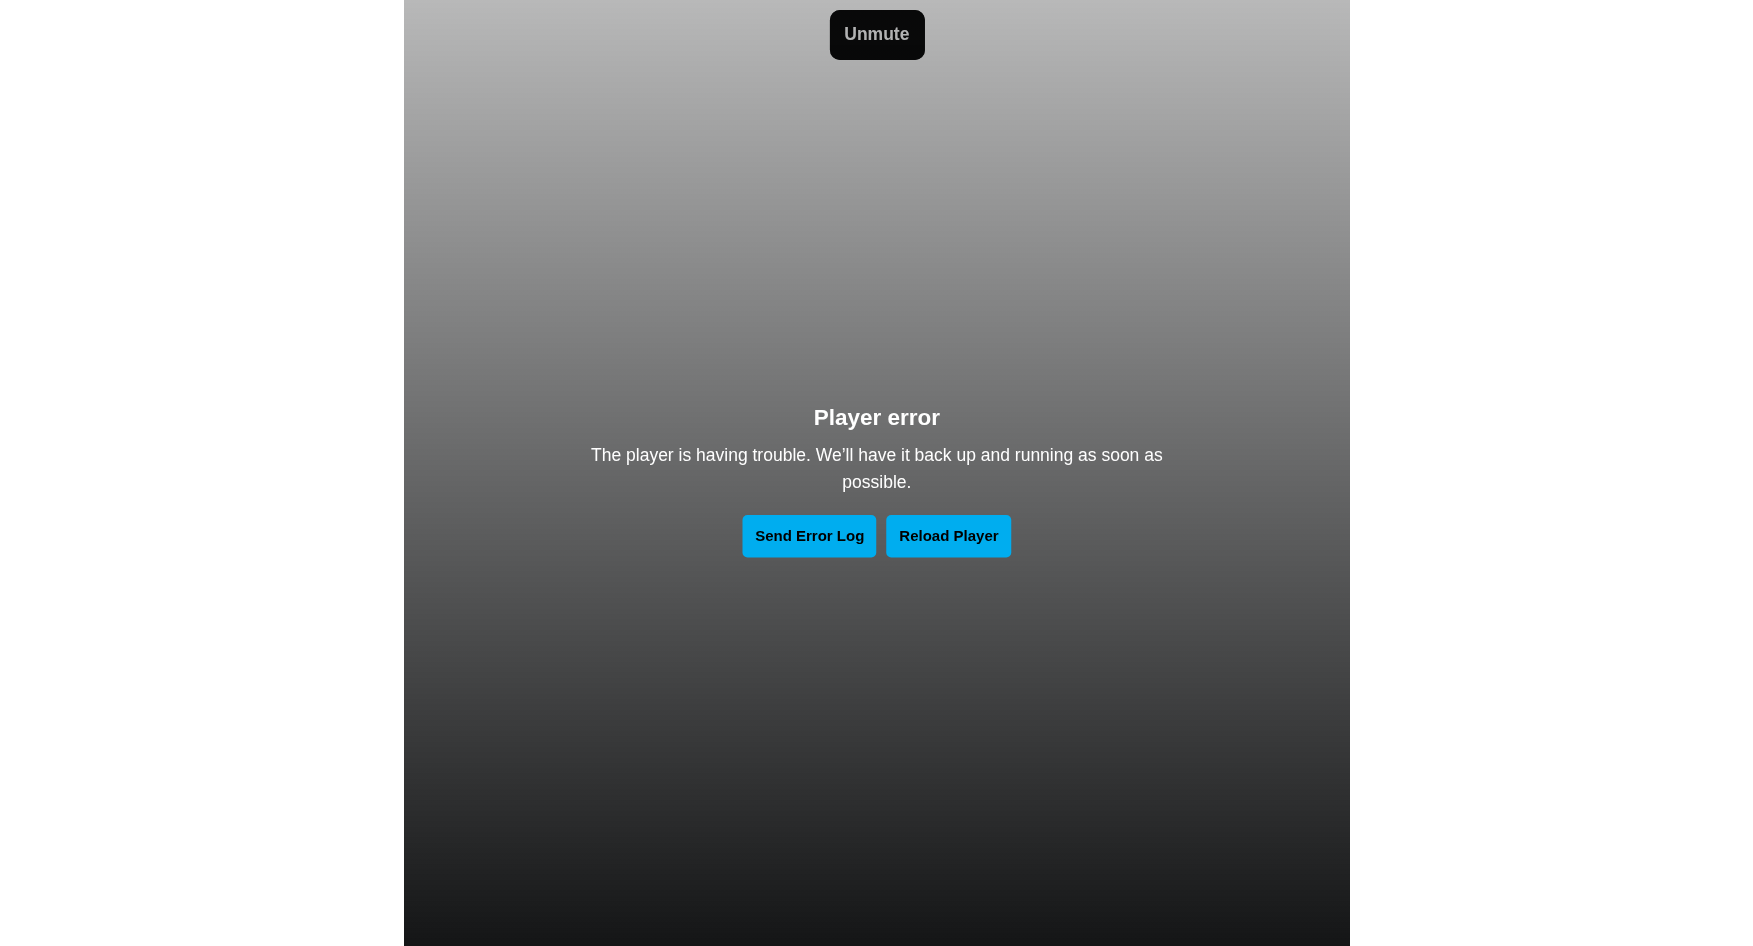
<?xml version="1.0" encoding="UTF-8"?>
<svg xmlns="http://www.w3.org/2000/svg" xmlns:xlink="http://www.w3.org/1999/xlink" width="1753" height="946">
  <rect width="100%" height="100%" fill="#ffffff" />
  <image x="404" y="0" width="946" height="946" xlink:href="image1.png" />
</svg>
